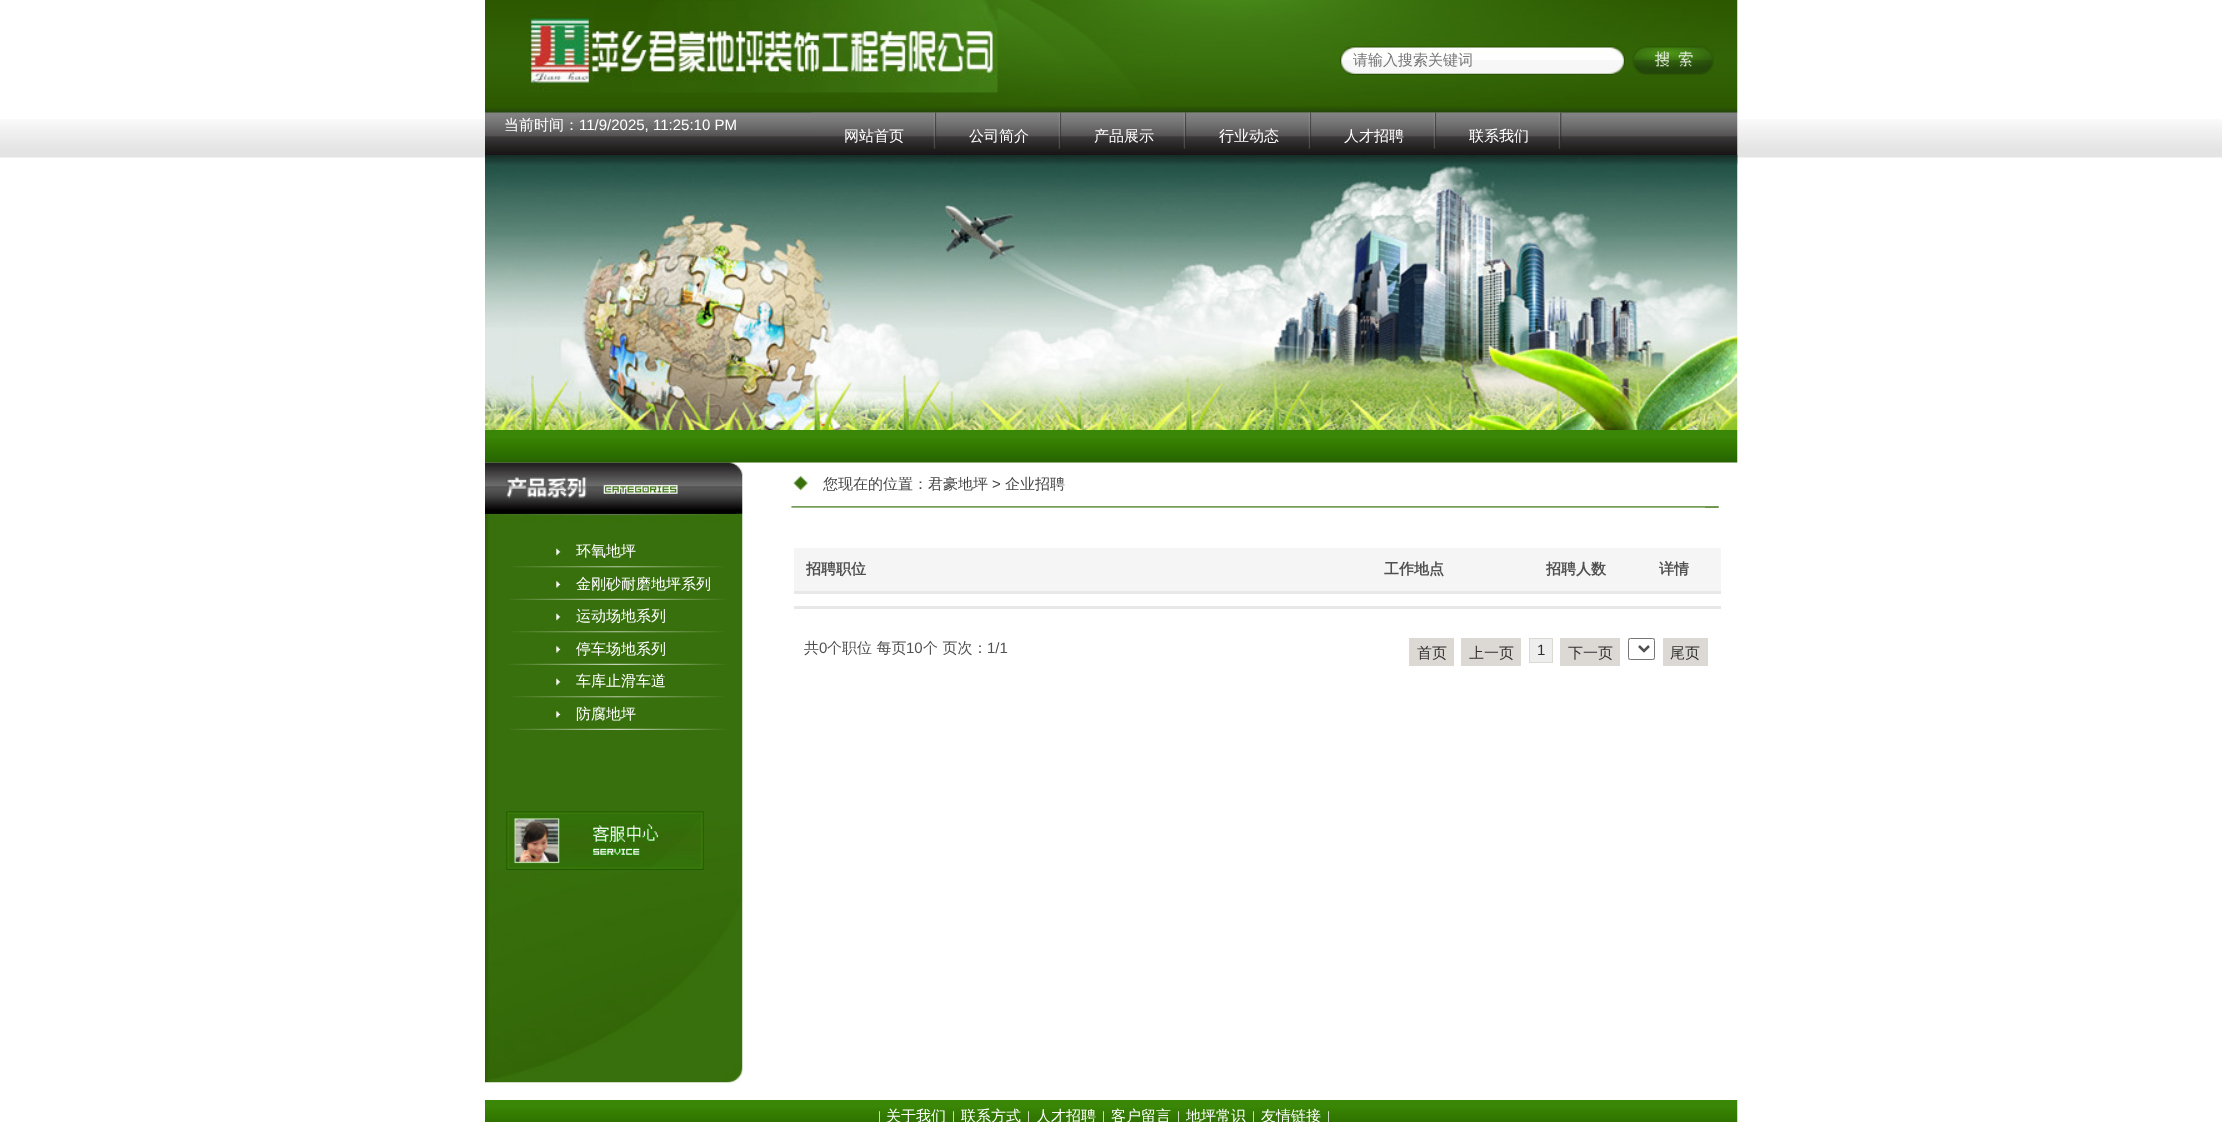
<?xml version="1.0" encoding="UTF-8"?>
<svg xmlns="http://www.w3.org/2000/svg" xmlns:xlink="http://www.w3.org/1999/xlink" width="2222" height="1122">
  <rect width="100%" height="100%" fill="#ffffff" />
  <image x="0" y="119" width="2222" height="39" xlink:href="image1.png" />
  <image x="485" y="0" width="1253" height="164" xlink:href="image2.png" />
  <image x="529" y="2" width="469" height="91" xlink:href="image3.png" />
  <image x="1340" y="46" width="285" height="29" xlink:href="image4.png" />
  <image x="1632" y="46" width="82" height="29" xlink:href="image5.png" />
  <image x="811" y="112" width="126" height="37" xlink:href="image6.png" />
  <image x="936" y="112" width="126" height="37" xlink:href="image7.png" />
  <image x="1061" y="112" width="126" height="37" xlink:href="image8.png" />
  <image x="1186" y="112" width="126" height="37" xlink:href="image8.png" />
  <image x="1311" y="112" width="126" height="37" xlink:href="image8.png" />
  <image x="1436" y="112" width="126" height="37" xlink:href="image8.png" />
  <image x="485" y="155" width="1253" height="275" xlink:href="image9.png" />
  <image x="485" y="462" width="258" height="621" xlink:href="image11.png" />
  <image x="485" y="462" width="252" height="52" xlink:href="image14.png" />
  <image x="485" y="430" width="1253" height="33" xlink:href="image10.png" />
  <image x="791" y="475" width="928" height="33" xlink:href="image12.png" />
  <image x="1705" y="506" width="14" height="2" xlink:href="image13.png" />
  <image x="511" y="548" width="213" height="20" xlink:href="image15.png" />
  <image x="509" y="567" width="217" height="33" xlink:href="image16.png" />
  <image x="511" y="613" width="213" height="20" xlink:href="image15.png" />
  <image x="509" y="632" width="217" height="33" xlink:href="image17.png" />
  <image x="511" y="678" width="213" height="20" xlink:href="image15.png" />
  <image x="509" y="697" width="217" height="33" xlink:href="image17.png" />
  <rect x="794" y="606" width="927" height="3" fill="#e8e8e8" />
  <rect x="794" y="548" width="927" height="43" fill="#f5f5f5" />
  <rect x="794" y="591" width="927" height="3" fill="#e8e8e8" />
  <rect x="1409" y="638" width="45" height="28" fill="#dcd9d4" />
  <rect x="1461" y="638" width="60" height="28" fill="#dcd9d4" />
  <rect x="1529.5" y="638.5" width="23" height="24" fill="#eeeeee" stroke="#dcd9d4" />
  <rect x="1560" y="638" width="60" height="28" fill="#dcd9d4" />
  <rect x="1628" y="638" width="27" height="22" fill="#dcd9d4" />
  <rect x="1628.5" y="638.5" width="26" height="21" rx="2" fill="#ffffff" stroke="#767676" />
  <path d="M 1639 646 l 5 5 l 5 -5" fill="none" stroke="#505050" stroke-width="2.5" />
  <rect x="1663" y="638" width="45" height="28" fill="#dcd9d4" />
  <image x="506" y="811" width="198" height="59" xlink:href="image18.png" />
  <image x="485" y="1100" width="1253" height="22" xlink:href="image19.png" />
  <text x="1353" y="65" style="font-family: WenQuanYi Zen Hei; font-size: 15px; font-weight: 500; fill: #767676">请输入搜索关键词</text>
  <text x="504" y="130" style="font-family: WenQuanYi Zen Hei; font-size: 15px; font-weight: 500; fill: #ffffff">当前时间：</text>
  <text x="579" y="130" style="font-family: Liberation Sans; font-size: 15px; fill: #ffffff">11/9/2025, 11:25:10 PM</text>
  <text x="844" y="141" style="font-family: WenQuanYi Zen Hei; font-size: 15px; font-weight: 500; fill: #ffffff">网站首页</text>
  <text x="969" y="141" style="font-family: WenQuanYi Zen Hei; font-size: 15px; font-weight: 500; fill: #ffffff">公司简介</text>
  <text x="1094" y="141" style="font-family: WenQuanYi Zen Hei; font-size: 15px; font-weight: 500; fill: #ffffff">产品展示</text>
  <text x="1219" y="141" style="font-family: WenQuanYi Zen Hei; font-size: 15px; font-weight: 500; fill: #ffffff">行业动态</text>
  <text x="1344" y="141" style="font-family: WenQuanYi Zen Hei; font-size: 15px; font-weight: 500; fill: #ffffff">人才招聘</text>
  <text x="1469" y="141" style="font-family: WenQuanYi Zen Hei; font-size: 15px; font-weight: 500; fill: #ffffff">联系我们</text>
  <text x="823" y="489" style="font-family: WenQuanYi Zen Hei; font-size: 15px; font-weight: 500; fill: #464646">您现在的位置：君豪地坪</text>
  <text x="992" y="489" style="font-family: Liberation Sans; font-size: 15px; fill: #464646">&gt;</text>
  <text x="1005" y="489" style="font-family: WenQuanYi Zen Hei; font-size: 15px; font-weight: 500; fill: #464646">企业招聘</text>
  <text x="576" y="556" style="font-family: WenQuanYi Zen Hei; font-size: 15px; font-weight: 500; fill: #ffffff">环氧地坪</text>
  <text x="576" y="589" style="font-family: WenQuanYi Zen Hei; font-size: 15px; font-weight: 500; fill: #ffffff">金刚砂耐磨地坪系列</text>
  <text x="576" y="621" style="font-family: WenQuanYi Zen Hei; font-size: 15px; font-weight: 500; fill: #ffffff">运动场地系列</text>
  <text x="576" y="654" style="font-family: WenQuanYi Zen Hei; font-size: 15px; font-weight: 500; fill: #ffffff">停车场地系列</text>
  <text x="576" y="686" style="font-family: WenQuanYi Zen Hei; font-size: 15px; font-weight: 500; fill: #ffffff">车库止滑车道</text>
  <text x="576" y="719" style="font-family: WenQuanYi Zen Hei; font-size: 15px; font-weight: 500; fill: #ffffff">防腐地坪</text>
  <text x="806" y="574" style="font-family: WenQuanYi Zen Hei; font-size: 15px; font-weight: bold; fill: #505050">招聘职位</text>
  <text x="1384" y="574" style="font-family: WenQuanYi Zen Hei; font-size: 15px; font-weight: bold; fill: #505050">工作地点</text>
  <text x="1546" y="574" style="font-family: WenQuanYi Zen Hei; font-size: 15px; font-weight: bold; fill: #505050">招聘人数</text>
  <text x="1659" y="574" style="font-family: WenQuanYi Zen Hei; font-size: 15px; font-weight: bold; fill: #505050">详情</text>
  <text x="804" y="653" style="font-family: WenQuanYi Zen Hei; font-size: 15px; font-weight: 500; fill: #505050">共</text>
  <text x="819" y="653" style="font-family: Liberation Sans; font-size: 15px; fill: #505050">0</text>
  <text x="827" y="653" style="font-family: WenQuanYi Zen Hei; font-size: 15px; font-weight: 500; fill: #505050">个职位 每页</text>
  <text x="906" y="653" style="font-family: Liberation Sans; font-size: 15px; fill: #505050">10</text>
  <text x="923" y="653" style="font-family: WenQuanYi Zen Hei; font-size: 15px; font-weight: 500; fill: #505050">个 页次：</text>
  <text x="987" y="653" style="font-family: Liberation Sans; font-size: 15px; fill: #505050">1/1</text>
  <text x="1417" y="658" style="font-family: WenQuanYi Zen Hei; font-size: 15px; font-weight: 500; fill: #303030">首页</text>
  <text x="1469" y="658" style="font-family: WenQuanYi Zen Hei; font-size: 15px; font-weight: 500; fill: #303030">上一页</text>
  <text x="1537" y="655" style="font-family: Liberation Sans; font-size: 15px; fill: #303030">1</text>
  <text x="1568" y="658" style="font-family: WenQuanYi Zen Hei; font-size: 15px; font-weight: 500; fill: #303030">下一页</text>
  <text x="1670" y="658" style="font-family: WenQuanYi Zen Hei; font-size: 15px; font-weight: 500; fill: #303030">尾页</text>
  <text x="878" y="1121" style="font-family: Liberation Serif; font-size: 14px; fill: #ffffff">|</text>
  <text x="886" y="1121" style="font-family: WenQuanYi Zen Hei; font-size: 15px; font-weight: 500; fill: #ffffff">关于我们</text>
  <text x="952" y="1121" style="font-family: Liberation Serif; font-size: 14px; fill: #ffffff">|</text>
  <text x="961" y="1121" style="font-family: WenQuanYi Zen Hei; font-size: 15px; font-weight: 500; fill: #ffffff">联系方式</text>
  <text x="1027" y="1121" style="font-family: Liberation Serif; font-size: 14px; fill: #ffffff">|</text>
  <text x="1036" y="1121" style="font-family: WenQuanYi Zen Hei; font-size: 15px; font-weight: 500; fill: #ffffff">人才招聘</text>
  <text x="1102" y="1121" style="font-family: Liberation Serif; font-size: 14px; fill: #ffffff">|</text>
  <text x="1111" y="1121" style="font-family: WenQuanYi Zen Hei; font-size: 15px; font-weight: 500; fill: #ffffff">客户留言</text>
  <text x="1177" y="1121" style="font-family: Liberation Serif; font-size: 14px; fill: #ffffff">|</text>
  <text x="1186" y="1121" style="font-family: WenQuanYi Zen Hei; font-size: 15px; font-weight: 500; fill: #ffffff">地坪常识</text>
  <text x="1252" y="1121" style="font-family: Liberation Serif; font-size: 14px; fill: #ffffff">|</text>
  <text x="1261" y="1121" style="font-family: WenQuanYi Zen Hei; font-size: 15px; font-weight: 500; fill: #ffffff">友情链接</text>
  <text x="1327" y="1121" style="font-family: Liberation Serif; font-size: 14px; fill: #ffffff">|</text>
</svg>
